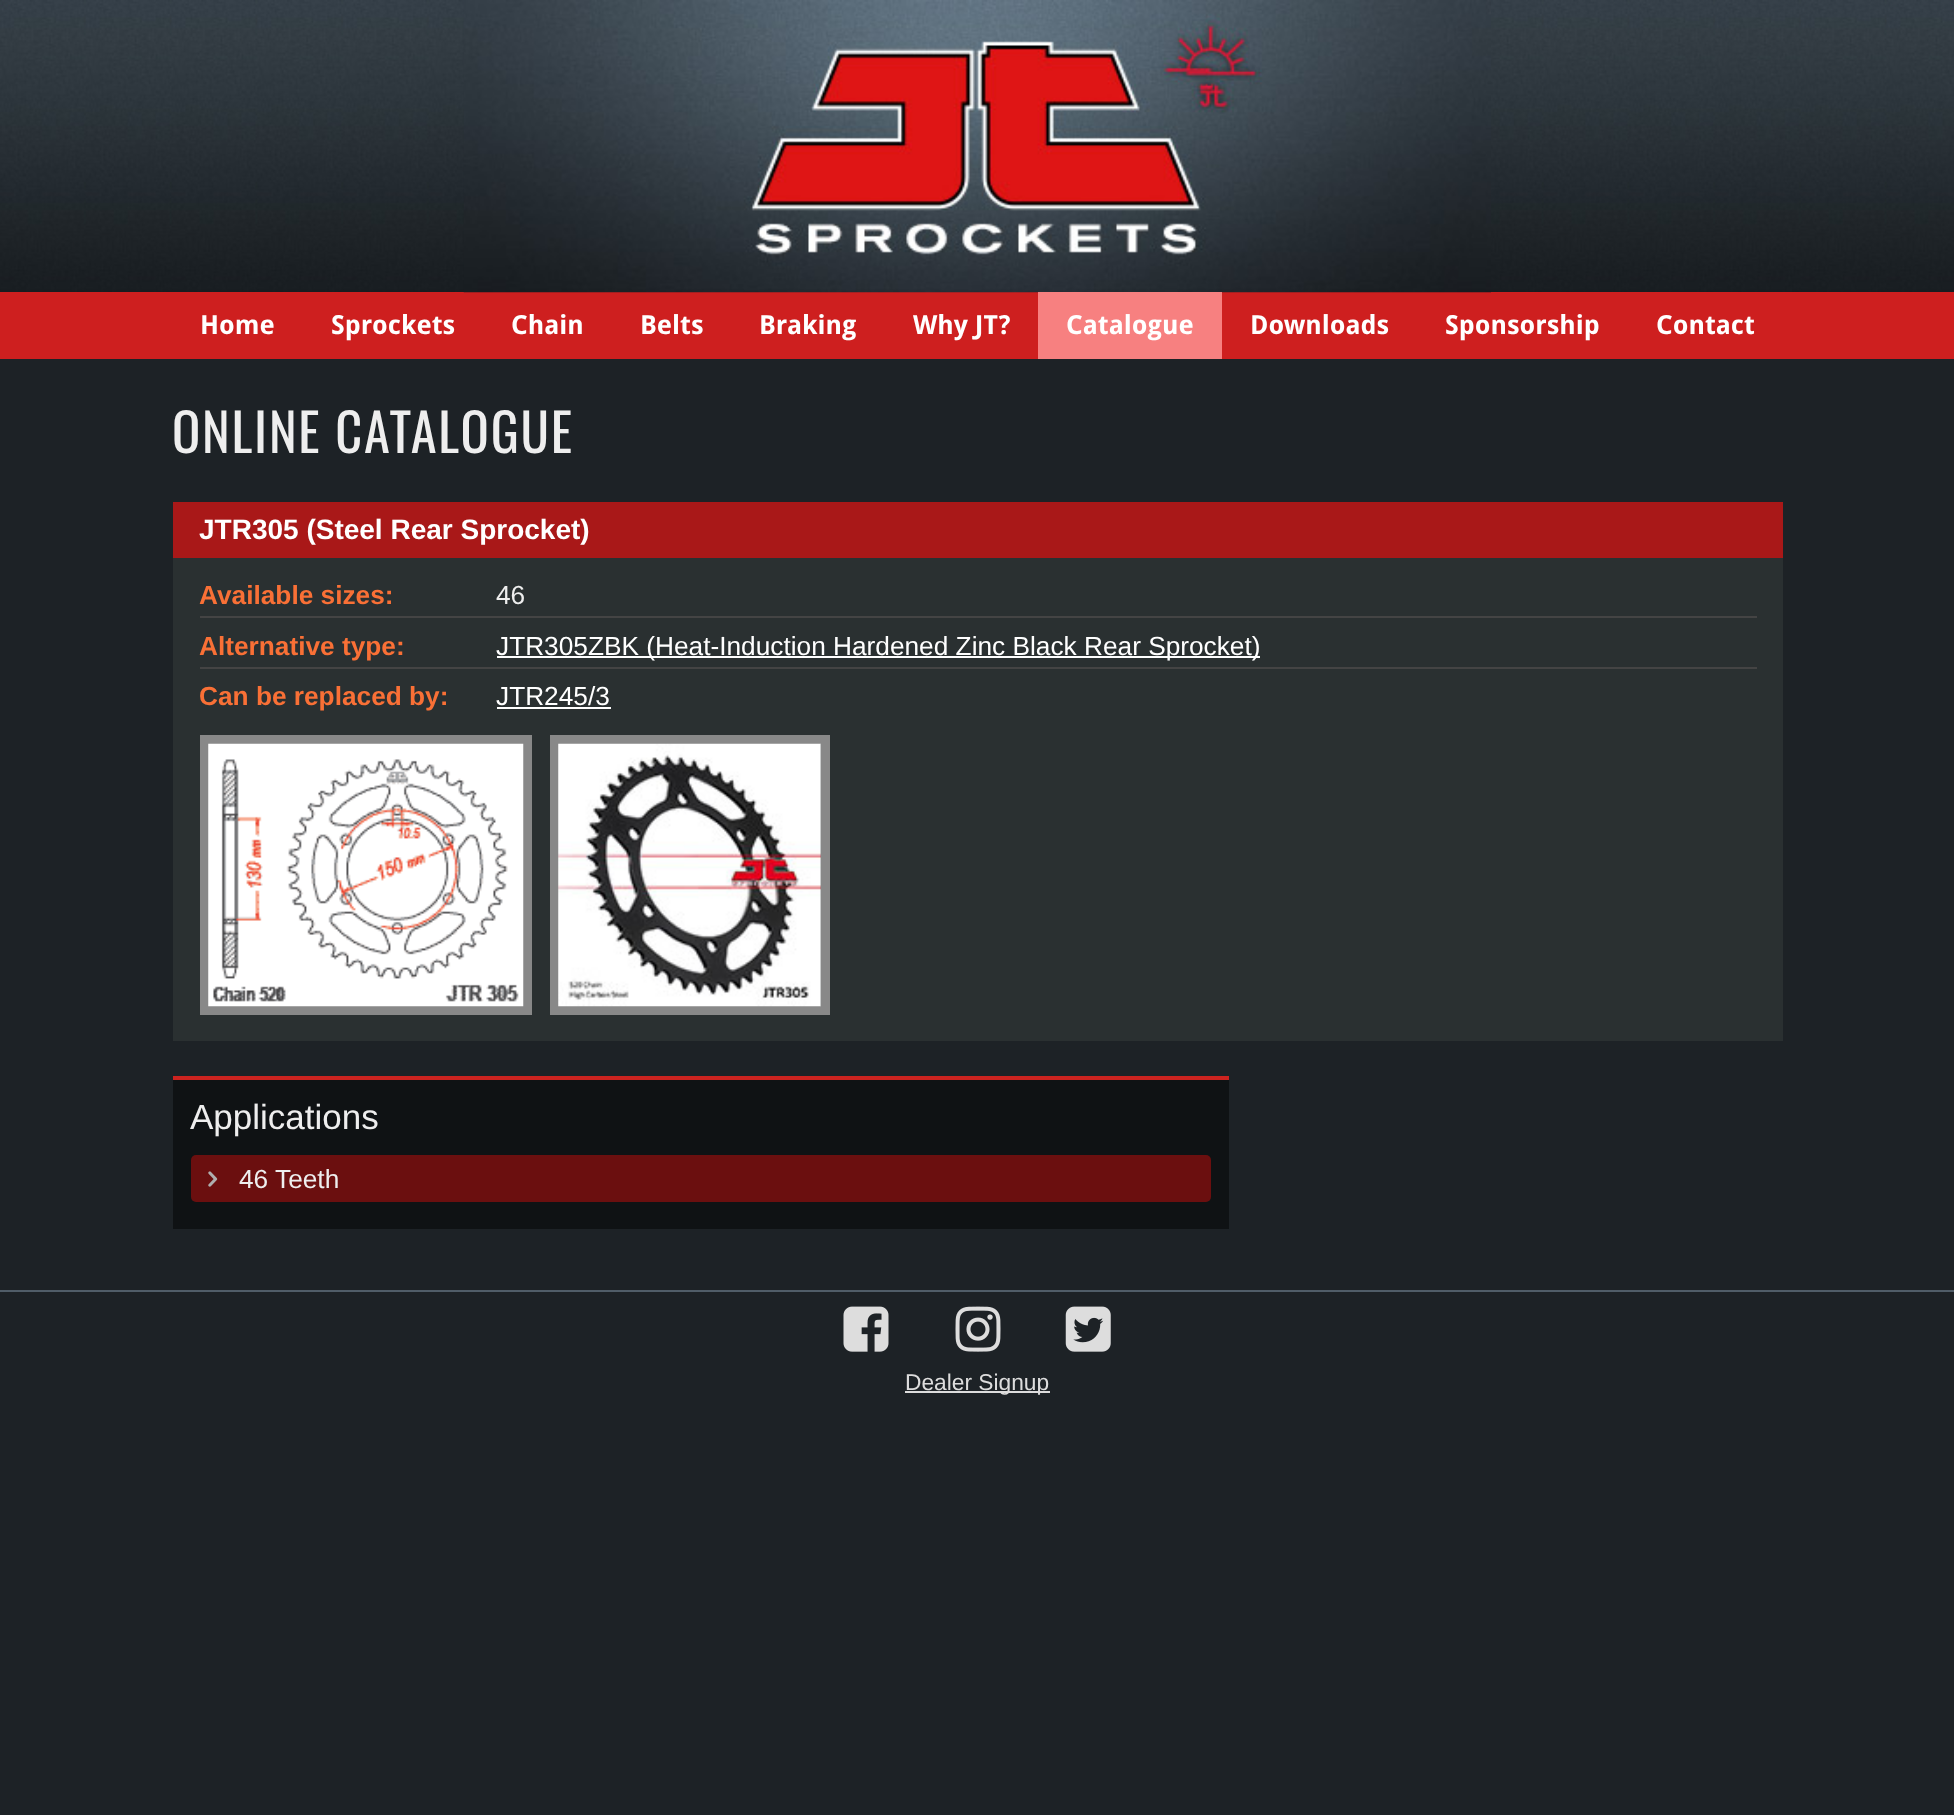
<?xml version="1.0" encoding="UTF-8"?>
<svg xmlns="http://www.w3.org/2000/svg" xmlns:xlink="http://www.w3.org/1999/xlink" width="1954" height="1815">
  <rect width="100%" height="100%" fill="#1d2226" />
  <image x="0" y="0" width="1954" height="292" xlink:href="image1.png" />
  <rect y="292" width="1954" height="67" fill="#ce1f1f" />
  <image x="463" y="0" width="1028" height="293" xlink:href="image2.png" />
  <rect x="1038" y="292" width="184" height="67" fill="#f78080" />
  <rect x="173" y="558" width="1610" height="483" fill="#2a3031" />
  <rect x="173" y="502" width="1610" height="56" fill="#a91818" />
  <rect x="200" y="616" width="1557" height="2" fill="#444444" />
  <rect x="200" y="667" width="1557" height="2" fill="#444444" />
  <rect x="497" y="656" width="763" height="2" fill="#ffffff" />
  <rect x="497" y="707" width="114" height="2" fill="#ffffff" />
  <rect x="204.5" y="739.5" width="323" height="271" fill="none" stroke="#888888" stroke-width="9" />
  <image x="208" y="743" width="316" height="264" xlink:href="image3.png" />
  <rect x="554.5" y="739.5" width="271" height="271" fill="none" stroke="#888888" stroke-width="9" />
  <image x="558" y="743" width="263" height="264" xlink:href="image4.png" />
  <rect x="173" y="1080" width="1056" height="149" fill="#0f1214" />
  <rect x="173" y="1076" width="1056" height="4" fill="#cd231f" />
  <rect x="191" y="1155" width="1020" height="47" rx="5" fill="#6b0f0f" />
  <image x="208" y="1171" width="10" height="16" xlink:href="image5.png" />
  <rect y="1290" width="1954" height="2" fill="#505d68" />
  <image x="843" y="1306" width="46" height="46" xlink:href="image6.png" />
  <image x="955" y="1306" width="46" height="46" xlink:href="image7.png" />
  <image x="1065" y="1306" width="46" height="46" xlink:href="image8.png" />
  <rect x="905" y="1391" width="145" height="2" fill="#dddddd" />
  <text x="200" y="334" style="font-family: Droid Sans; font-size: 26.25px; font-weight: bold; fill: #ffffff">Home</text>
  <text x="331" y="334" style="font-family: Droid Sans; font-size: 26.25px; font-weight: bold; fill: #ffffff">Sprockets</text>
  <text x="511" y="334" style="font-family: Droid Sans; font-size: 26.25px; font-weight: bold; fill: #ffffff">Chain</text>
  <text x="640" y="334" style="font-family: Droid Sans; font-size: 26.25px; font-weight: bold; fill: #ffffff">Belts</text>
  <text x="759" y="334" style="font-family: Droid Sans; font-size: 26.25px; font-weight: bold; fill: #ffffff">Braking</text>
  <text x="913" y="334" style="font-family: Droid Sans; font-size: 26.25px; font-weight: bold; fill: #ffffff">Why JT?</text>
  <text x="1066" y="334" style="font-family: Droid Sans; font-size: 26.25px; font-weight: bold; fill: #ffffff">Catalogue</text>
  <text x="1250" y="334" style="font-family: Droid Sans; font-size: 26.25px; font-weight: bold; fill: #ffffff">Downloads</text>
  <text x="1445" y="334" style="font-family: Droid Sans; font-size: 26.25px; font-weight: bold; fill: #ffffff">Sponsorship</text>
  <text x="1656" y="334" style="font-family: Droid Sans; font-size: 26.25px; font-weight: bold; fill: #ffffff">Contact</text>
  <text x="172" y="453" style="font-family: Oswald; font-size: 52.5px; letter-spacing: 1.75px; fill: #eeeeee">ONLINE CATALOGUE</text>
  <text x="199" y="539" style="font-family: Liberation Sans; font-size: 28px; font-weight: bold; fill: #ffffff">JTR305 (Steel Rear Sprocket)</text>
  <text x="199" y="604" style="font-family: Liberation Sans; font-size: 26.25px; font-weight: bold; fill: #f97036">Available sizes:</text>
  <text x="496" y="604" style="font-family: Liberation Sans; font-size: 26.25px; fill: #eeeeee">46</text>
  <text x="199" y="655" style="font-family: Liberation Sans; font-size: 26.25px; font-weight: bold; fill: #f97036">Alternative type:</text>
  <text x="496" y="655" style="font-family: Liberation Sans; font-size: 26.25px; fill: #ffffff">JTR305ZBK (Heat-Induction Hardened Zinc Black Rear Sprocket)</text>
  <text x="199" y="705" style="font-family: Liberation Sans; font-size: 26.25px; font-weight: bold; fill: #f97036">Can be replaced by:</text>
  <text x="496" y="705" style="font-family: Liberation Sans; font-size: 26.25px; fill: #ffffff">JTR245/3</text>
  <text x="190" y="1129" style="font-family: Liberation Sans; font-size: 35px; fill: #eeeeee">Applications</text>
  <text x="239" y="1188" style="font-family: Liberation Sans; font-size: 26.25px; fill: #eeeeee">46 Teeth</text>
  <text x="905" y="1390" style="font-family: Liberation Sans; font-size: 22.75px; fill: #dddddd">Dealer Signup</text>
</svg>
